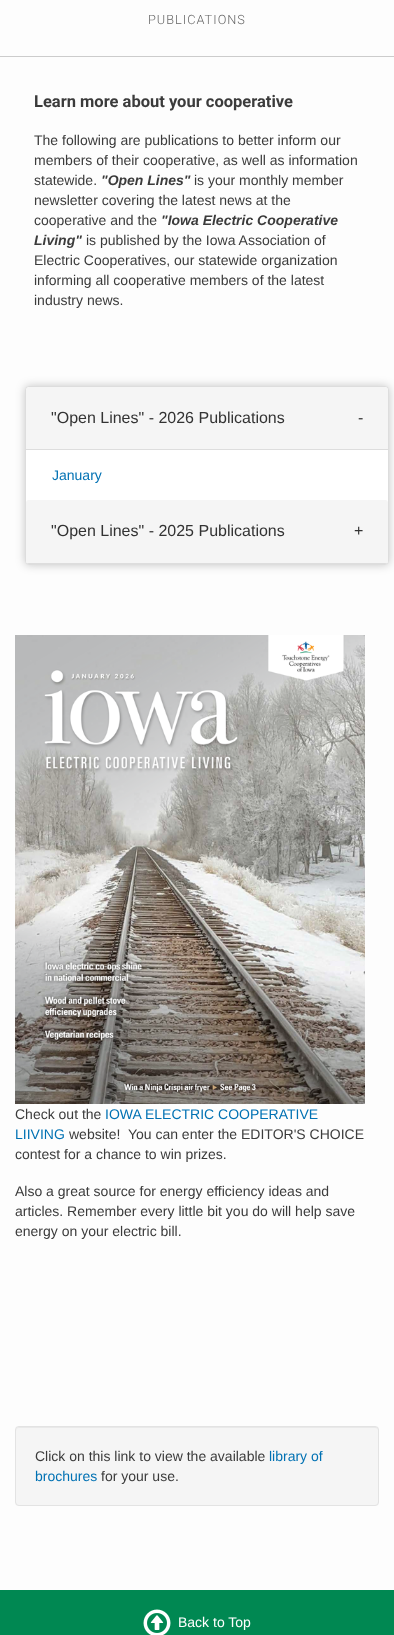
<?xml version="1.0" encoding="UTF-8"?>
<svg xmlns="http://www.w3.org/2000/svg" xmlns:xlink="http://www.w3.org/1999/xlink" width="394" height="1635">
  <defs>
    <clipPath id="clip1"><rect x="26" y="387" width="362" height="177" rx="3" /></clipPath>
  </defs>
  <rect width="100%" height="100%" fill="#fdfdfd" />
  <rect y="56" width="394" height="1" fill="#cccccc" />
  <rect x="25" y="386" width="364" height="179" rx="4" fill="#000000" fill-opacity="0.22" filter="blur(5px)" />
  <rect x="25.5" y="386.5" width="363" height="178" rx="3.5" fill="#ffffff" stroke="#dddddd" />
  <path d="M 29 387 h 356 c 1.5 0 3 1.5 3 3 v 60 h -362 v -60 c 0 -1.5 1.5 -3 3 -3 z" fill="#f5f5f5" />
  <rect x="26" y="449" width="362" height="1" fill="#dddddd" />
  <rect x="26" y="500" width="362" height="64" rx="3" fill="#f5f5f5" />
  <g clip-path="url(#clip1)">
    <rect x="26" y="563" width="362" height="1" fill="#dddddd" />
  </g>
  <image x="15" y="635" width="350" height="469" xlink:href="image1.png" />
  <rect x="15" y="1426" width="364" height="80" rx="4" fill="#f5f5f5" />
  <path d="M 19 1428 h 356 c 2 0 3 1 3 3 c 0 -2 -1 -4 -3 -4 h -356 l -2 1 l -1 3 c 0 -2 1 -3 3 -3 z" fill="#e9e9e9" />
  <rect x="15.5" y="1426.5" width="363" height="79" rx="3.5" fill="none" stroke="#e3e3e3" />
  <rect y="1590" width="394" height="45" fill="#008852" />
  <image x="143" y="1609" width="28" height="26" xlink:href="image2.png" />
  <text x="148" y="24" style="font-family: Roboto; font-size: 12.75px; font-weight: 300; letter-spacing: 1px; fill: #666666">PUBLICATIONS</text>
  <text x="34" y="107" style="font-family: Roboto; font-size: 16.5px; font-weight: bold; fill: #3b3b3b">Learn more about your cooperative</text>
  <text x="34" y="145" style="font-family: Liberation Sans; font-size: 14px; fill: #3b3b3b">The following are publications to better inform our</text>
  <text x="34" y="165" style="font-family: Liberation Sans; font-size: 14px; fill: #3b3b3b">members of their cooperative, as well as information</text>
  <text x="34" y="185" style="font-family: Liberation Sans; font-size: 14px; fill: #3b3b3b">statewide.</text>
  <text x="101" y="185" style="font-family: Liberation Sans; font-size: 14px; font-weight: bold; font-style: italic; fill: #3b3b3b">"Open Lines"</text>
  <text x="194" y="185" style="font-family: Liberation Sans; font-size: 14px; fill: #3b3b3b">is your monthly member</text>
  <text x="34" y="205" style="font-family: Liberation Sans; font-size: 14px; fill: #3b3b3b">newsletter covering the latest news at the</text>
  <text x="34" y="225" style="font-family: Liberation Sans; font-size: 14px; fill: #3b3b3b">cooperative and the</text>
  <text x="161" y="225" style="font-family: Liberation Sans; font-size: 14px; font-weight: bold; font-style: italic; fill: #3b3b3b">"Iowa Electric Cooperative</text>
  <text x="34" y="245" style="font-family: Liberation Sans; font-size: 14px; font-weight: bold; font-style: italic; fill: #3b3b3b">Living"</text>
  <text x="86" y="245" style="font-family: Liberation Sans; font-size: 14px; fill: #3b3b3b">is published by the Iowa Association of</text>
  <text x="34" y="265" style="font-family: Liberation Sans; font-size: 14px; fill: #3b3b3b">Electric Cooperatives, our statewide organization</text>
  <text x="34" y="285" style="font-family: Liberation Sans; font-size: 14px; fill: #3b3b3b">informing all cooperative members of the latest</text>
  <text x="34" y="305" style="font-family: Liberation Sans; font-size: 14px; fill: #3b3b3b">industry news.</text>
  <text x="51" y="423" style="font-family: Liberation Sans; font-size: 16px; fill: #333333">"Open Lines" - 2026 Publications</text>
  <text x="358" y="423" style="font-family: Liberation Sans; font-size: 16px; fill: #333333">-</text>
  <text x="52" y="480" style="font-family: Liberation Sans; font-size: 14px; fill: #0071b3">January</text>
  <text x="51" y="536" style="font-family: Liberation Sans; font-size: 16px; fill: #333333">"Open Lines" - 2025 Publications</text>
  <text x="354" y="536" style="font-family: Liberation Sans; font-size: 16px; fill: #333333">+</text>
  <text x="15" y="1119" style="font-family: Liberation Sans; font-size: 14px; fill: #3b3b3b">Check out the</text>
  <text x="105" y="1119" style="font-family: Liberation Sans; font-size: 14px; fill: #0071b3">IOWA ELECTRIC COOPERATIVE</text>
  <text x="15" y="1139" style="font-family: Liberation Sans; font-size: 14px; fill: #0071b3">LIIVING</text>
  <text x="69" y="1139" style="font-family: Liberation Sans; font-size: 14px; fill: #3b3b3b" xml:space="preserve">website!  You can enter the EDITOR'S CHOICE</text>
  <text x="15" y="1159" style="font-family: Liberation Sans; font-size: 14px; fill: #3b3b3b">contest for a chance to win prizes.</text>
  <text x="15" y="1196" style="font-family: Liberation Sans; font-size: 14px; fill: #3b3b3b">Also a great source for energy efficiency ideas and</text>
  <text x="15" y="1216" style="font-family: Liberation Sans; font-size: 14px; fill: #3b3b3b">articles. Remember every little bit you do will help save</text>
  <text x="15" y="1236" style="font-family: Liberation Sans; font-size: 14px; fill: #3b3b3b">energy on your electric bill.</text>
  <text x="35" y="1461" style="font-family: Liberation Sans; font-size: 14px; fill: #3b3b3b">Click on this link to view the available</text>
  <text x="269" y="1461" style="font-family: Liberation Sans; font-size: 14px; fill: #0071b3">library of</text>
  <text x="35" y="1481" style="font-family: Liberation Sans; font-size: 14px; fill: #0071b3">brochures</text>
  <text x="101" y="1481" style="font-family: Liberation Sans; font-size: 14px; fill: #3b3b3b">for your use.</text>
  <text x="178" y="1627" style="font-family: Liberation Sans; font-size: 14px; fill: #ffffff">Back to Top</text>
</svg>
